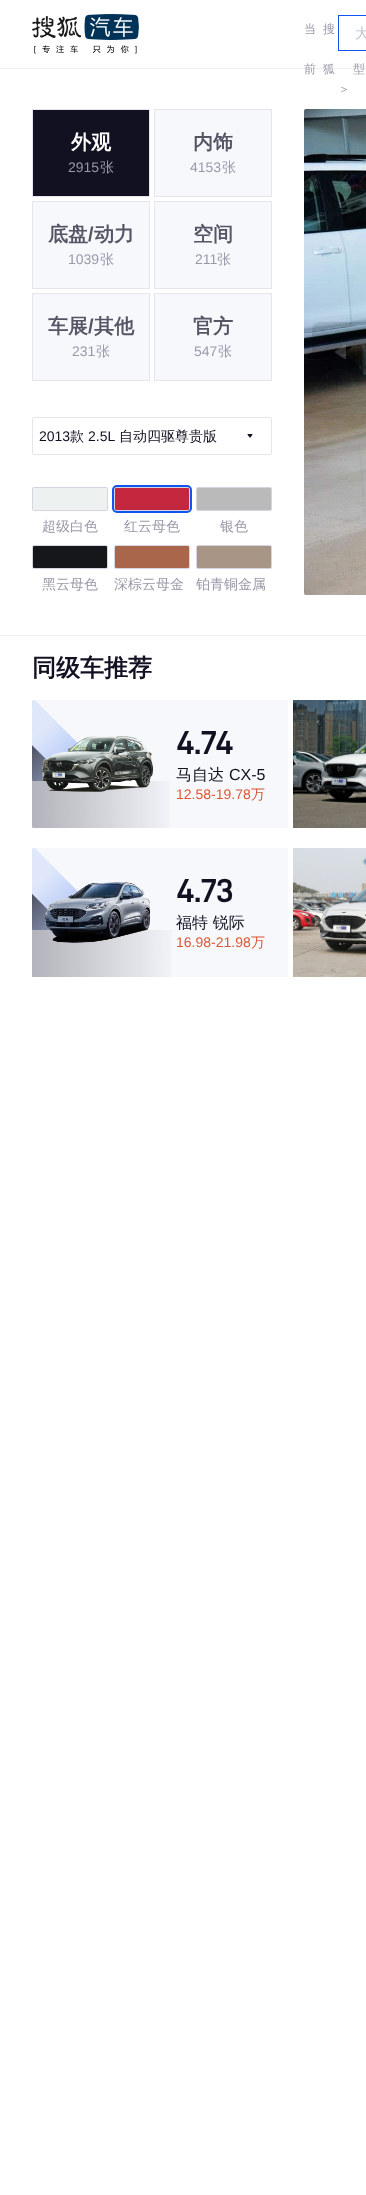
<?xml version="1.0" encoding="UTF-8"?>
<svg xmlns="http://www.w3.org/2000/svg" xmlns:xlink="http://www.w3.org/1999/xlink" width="366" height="2195">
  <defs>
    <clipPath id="clip1"><rect x="39" y="429" width="178" height="14" /></clipPath>
  </defs>
  <rect width="100%" height="100%" fill="#ffffff" />
  <rect y="68" width="366" height="1" fill="#eeeef0" />
  <image x="32" y="14" width="107" height="40" xlink:href="image1.png" />
  <rect x="338.5" y="15.5" width="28" height="35" fill="none" stroke="#1155ee" />
  <rect x="32.5" y="109.5" width="117" height="87" fill="#111122" stroke="#e5e5ee" />
  <rect x="154.5" y="109.5" width="117" height="87" fill="#f7f8fc" stroke="#e5e5ee" />
  <rect x="32.5" y="201.5" width="117" height="87" fill="#f7f8fc" stroke="#e5e5ee" />
  <rect x="154.5" y="201.5" width="117" height="87" fill="#f7f8fc" stroke="#e5e5ee" />
  <rect x="32.5" y="293.5" width="117" height="87" fill="#f7f8fc" stroke="#e5e5ee" />
  <rect x="154.5" y="293.5" width="117" height="87" fill="#f7f8fc" stroke="#e5e5ee" />
  <rect x="32.5" y="417.5" width="239" height="37" rx="1.5" fill="none" stroke="#e5e5ee" />
  <image x="247" y="434" width="6" height="4" xlink:href="image2.png" />
  <rect x="32.5" y="487.5" width="75" height="23" rx="1.5" fill="none" stroke="#d5d5e2" />
  <rect x="33" y="488" width="74" height="22" rx="1" fill="#edf1f0" />
  <rect x="114.5" y="487.5" width="75" height="23" rx="1.5" fill="none" stroke="#d5d5e2" />
  <rect x="115" y="488" width="74" height="22" rx="1" fill="#c4283e" />
  <rect x="113" y="486" width="78" height="26" rx="4" fill="none" stroke="#1155ee" stroke-width="2" />
  <rect x="196.5" y="487.5" width="75" height="23" rx="1.5" fill="none" stroke="#d5d5e2" />
  <rect x="197" y="488" width="74" height="22" rx="1" fill="#bababa" />
  <rect x="32.5" y="545.5" width="75" height="23" rx="1.5" fill="none" stroke="#d5d5e2" />
  <rect x="33" y="546" width="74" height="22" rx="1" fill="#16171b" />
  <rect x="114.5" y="545.5" width="75" height="23" rx="1.5" fill="none" stroke="#d5d5e2" />
  <rect x="115" y="546" width="74" height="22" rx="1" fill="#a9664b" />
  <rect x="196.5" y="545.5" width="75" height="23" rx="1.5" fill="none" stroke="#d5d5e2" />
  <rect x="197" y="546" width="74" height="22" rx="1" fill="#a99586" />
  <image x="304" y="109" width="62" height="486" xlink:href="image3.png" />
  <rect x="312" y="322" width="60" height="60" rx="8" fill="#000000" fill-opacity="0.1" />
  <image x="335" y="345" width="11" height="14" xlink:href="image4.png" />
  <rect y="635" width="366" height="1" fill="#eeeef0" />
  <rect x="32" y="700" width="256" height="128" fill="#f7f8fc" />
  <image x="32" y="700" width="138" height="128" xlink:href="image5.png" />
  <image x="42" y="736" width="111" height="56" xlink:href="image6.png" />
  <image x="293" y="700" width="73" height="128" xlink:href="image7.png" />
  <rect x="32" y="848" width="256" height="129" fill="#f7f8fc" />
  <image x="32" y="848" width="140" height="129" xlink:href="image8.png" />
  <image x="45" y="882" width="106" height="61" xlink:href="image9.png" />
  <image x="293" y="848" width="73" height="129" xlink:href="image10.png" />
  <text x="304" y="33" style="font-family: WenQuanYi Zen Hei; font-size: 12px; font-weight: 500; fill: #9999aa">当</text>
  <text x="304" y="73" style="font-family: WenQuanYi Zen Hei; font-size: 12px; font-weight: 500; fill: #9999aa">前</text>
  <text x="323" y="33" style="font-family: WenQuanYi Zen Hei; font-size: 12px; font-weight: 500; fill: #9999aa">搜</text>
  <text x="323" y="73" style="font-family: WenQuanYi Zen Hei; font-size: 12px; font-weight: 500; fill: #9999aa">狐</text>
  <text x="353" y="73" style="font-family: WenQuanYi Zen Hei; font-size: 12px; font-weight: 500; fill: #9999aa">型</text>
  <text x="338" y="93" style="font-family: WenQuanYi Zen Hei; font-size: 12px; font-weight: 500; fill: #9999aa">＞</text>
  <text x="355" y="38" style="font-family: WenQuanYi Zen Hei; font-size: 14px; font-weight: 500; fill: #bbc2cc">大</text>
  <text x="71" y="149" style="font-family: WenQuanYi Zen Hei; font-size: 20px; font-weight: bold; fill: #ffffff">外观</text>
  <text x="68" y="172" style="font-family: Liberation Sans; font-size: 14px; fill: #9999aa">2915</text>
  <text x="100" y="172" style="font-family: WenQuanYi Zen Hei; font-size: 14px; font-weight: 500; fill: #9999aa">张</text>
  <text x="193" y="149" style="font-family: WenQuanYi Zen Hei; font-size: 20px; font-weight: bold; fill: #555566">内饰</text>
  <text x="190" y="172" style="font-family: Liberation Sans; font-size: 14px; fill: #9999aa">4153</text>
  <text x="222" y="172" style="font-family: WenQuanYi Zen Hei; font-size: 14px; font-weight: 500; fill: #9999aa">张</text>
  <text x="48" y="241" style="font-family: WenQuanYi Zen Hei; font-size: 20px; font-weight: bold; fill: #555566">底盘</text>
  <text x="88" y="241" style="font-family: Liberation Sans; font-size: 20px; font-weight: bold; fill: #555566">/</text>
  <text x="94" y="241" style="font-family: WenQuanYi Zen Hei; font-size: 20px; font-weight: bold; fill: #555566">动力</text>
  <text x="68" y="264" style="font-family: Liberation Sans; font-size: 14px; fill: #9999aa">1039</text>
  <text x="100" y="264" style="font-family: WenQuanYi Zen Hei; font-size: 14px; font-weight: 500; fill: #9999aa">张</text>
  <text x="193" y="241" style="font-family: WenQuanYi Zen Hei; font-size: 20px; font-weight: bold; fill: #555566">空间</text>
  <text x="195" y="264" style="font-family: Liberation Sans; font-size: 14px; fill: #9999aa">211</text>
  <text x="217" y="264" style="font-family: WenQuanYi Zen Hei; font-size: 14px; font-weight: 500; fill: #9999aa">张</text>
  <text x="48" y="333" style="font-family: WenQuanYi Zen Hei; font-size: 20px; font-weight: bold; fill: #555566">车展</text>
  <text x="88" y="333" style="font-family: Liberation Sans; font-size: 20px; font-weight: bold; fill: #555566">/</text>
  <text x="94" y="333" style="font-family: WenQuanYi Zen Hei; font-size: 20px; font-weight: bold; fill: #555566">其他</text>
  <text x="72" y="356" style="font-family: Liberation Sans; font-size: 14px; fill: #9999aa">231</text>
  <text x="96" y="356" style="font-family: WenQuanYi Zen Hei; font-size: 14px; font-weight: 500; fill: #9999aa">张</text>
  <text x="193" y="333" style="font-family: WenQuanYi Zen Hei; font-size: 20px; font-weight: bold; fill: #555566">官方</text>
  <text x="194" y="356" style="font-family: Liberation Sans; font-size: 14px; fill: #9999aa">547</text>
  <text x="218" y="356" style="font-family: WenQuanYi Zen Hei; font-size: 14px; font-weight: 500; fill: #9999aa">张</text>
  <text x="39" y="441" style="font-family: Liberation Sans; font-size: 14px; fill: #111122">2013</text>
  <text x="70" y="441" style="font-family: WenQuanYi Zen Hei; font-size: 14px; font-weight: 500; fill: #111122">款</text>
  <text x="88" y="441" style="font-family: Liberation Sans; font-size: 14px; fill: #111122">2.5L</text>
  <g clip-path="url(#clip1)">
    <text x="119" y="441" style="font-family: WenQuanYi Zen Hei; font-size: 14px; font-weight: 500; fill: #111122">自动四驱尊贵版</text>
  </g>
  <text x="42" y="531" style="font-family: WenQuanYi Zen Hei; font-size: 14px; font-weight: 500; fill: #9999aa">超级白色</text>
  <text x="124" y="531" style="font-family: WenQuanYi Zen Hei; font-size: 14px; font-weight: 500; fill: #9999aa">红云母色</text>
  <text x="220" y="531" style="font-family: WenQuanYi Zen Hei; font-size: 14px; font-weight: 500; fill: #9999aa">银色</text>
  <text x="42" y="589" style="font-family: WenQuanYi Zen Hei; font-size: 14px; font-weight: 500; fill: #9999aa">黑云母色</text>
  <text x="114" y="589" style="font-family: WenQuanYi Zen Hei; font-size: 14px; font-weight: 500; fill: #9999aa">深棕云母金</text>
  <text x="196" y="589" style="font-family: WenQuanYi Zen Hei; font-size: 14px; font-weight: 500; fill: #9999aa">铂青铜金属</text>
  <text x="32" y="676" style="font-family: WenQuanYi Zen Hei; font-size: 24px; font-weight: bold; fill: #111122">同级车推荐</text>
  <text x="176" y="754" style="font-family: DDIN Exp; font-size: 32px; font-weight: bold; fill: #111122">4.74</text>
  <text x="176" y="780" style="font-family: WenQuanYi Zen Hei; font-size: 16px; font-weight: 500; fill: #111122">马自达</text>
  <text x="229" y="780" style="font-family: Liberation Sans; font-size: 16px; fill: #111122">CX-5</text>
  <text x="176" y="799" style="font-family: Liberation Sans; font-size: 14px; fill: #dd5533">12.58-19.78</text>
  <text x="251" y="799" style="font-family: WenQuanYi Zen Hei; font-size: 14px; font-weight: 500; fill: #dd5533">万</text>
  <text x="176" y="902" style="font-family: DDIN Exp; font-size: 32px; font-weight: bold; fill: #111122">4.73</text>
  <text x="176" y="928" style="font-family: WenQuanYi Zen Hei; font-size: 16px; font-weight: 500; fill: #111122">福特 锐际</text>
  <text x="176" y="947" style="font-family: Liberation Sans; font-size: 14px; fill: #dd5533">16.98-21.98</text>
  <text x="251" y="947" style="font-family: WenQuanYi Zen Hei; font-size: 14px; font-weight: 500; fill: #dd5533">万</text>
</svg>
